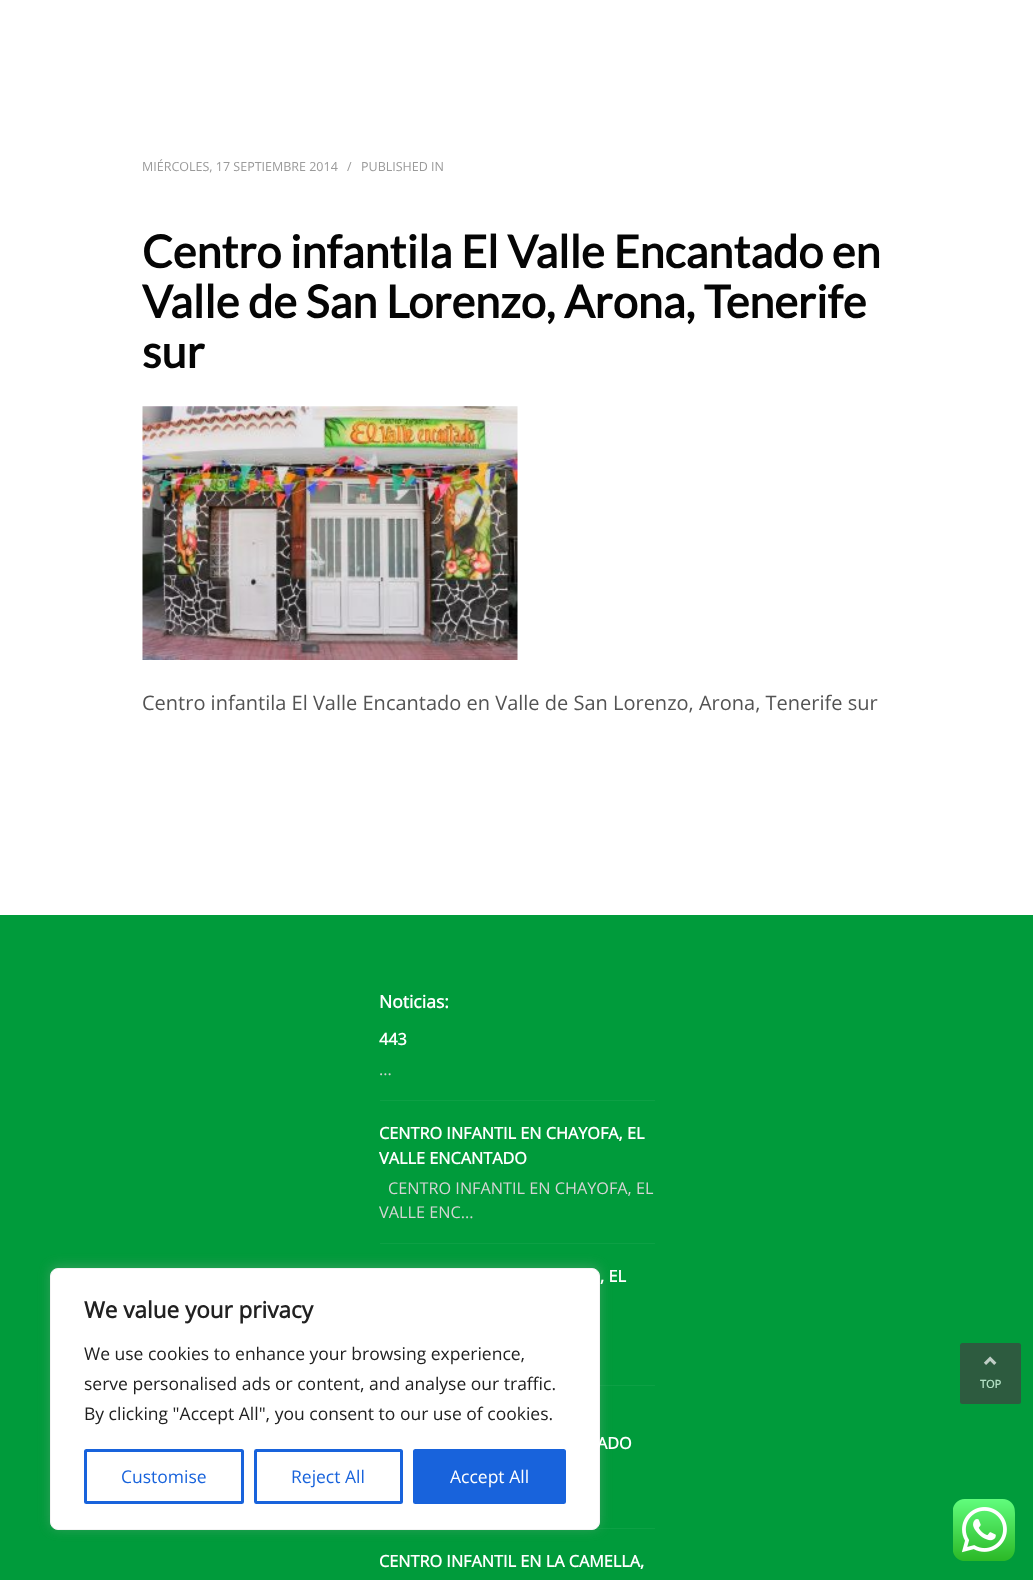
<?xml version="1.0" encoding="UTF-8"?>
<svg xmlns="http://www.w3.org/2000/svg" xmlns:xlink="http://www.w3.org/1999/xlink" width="1033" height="1580">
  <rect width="100%" height="100%" fill="#ffffff" />
  <image x="142" y="406" width="376" height="254" xlink:href="image1.png" />
  <rect y="915" width="1033" height="665" fill="#009b3b" />
  <rect x="380" y="1100" width="275" height="1" fill="#0da045" />
  <rect x="380" y="1243" width="275" height="1" fill="#0da045" />
  <rect x="600" y="1385" width="55" height="1" fill="#0da045" />
  <rect x="595" y="1528" width="60" height="1" fill="#0da045" />
  <rect x="50" y="1266" width="550" height="263" rx="8" fill="#acabab" fill-opacity="0.3" filter="blur(6px)" />
  <rect x="50.5" y="1268.5" width="549" height="261" rx="7.5" fill="#ffffff" stroke="#f4f4f4" />
  <rect x="85.5" y="1450.5" width="157" height="52" rx="1" fill="none" stroke="#1863dc" stroke-width="3" />
  <rect x="255.5" y="1450.5" width="146" height="52" rx="1" fill="none" stroke="#1863dc" stroke-width="3" />
  <rect x="414.5" y="1450.5" width="150" height="52" rx="1" fill="#1863dc" stroke="#1863dc" stroke-width="3" />
  <rect x="960" y="1343" width="61" height="61" rx="2.5" fill="#2d5b3f" />
  <image x="983" y="1356" width="14" height="9" xlink:href="image2.png" />
  <image x="953" y="1499" width="62" height="62" xlink:href="image3.png" />
  <text x="142" y="171" style="font-family: Open Sans; font-size: 12.5px; fill: #9a9a9a">MIÉRCOLES, 17 SEPTIEMBRE 2014</text>
  <text x="347" y="171" style="font-family: Open Sans; font-size: 12.5px; fill: #9a9a9a">/</text>
  <text x="361" y="171" style="font-family: Open Sans; font-size: 12.5px; fill: #9a9a9a">PUBLISHED IN</text>
  <text x="142" y="268" style="font-family: Lato; font-size: 45px; font-weight: bold; fill: #050505">Centro infantila El Valle Encantado en</text>
  <text x="142" y="318" style="font-family: Lato; font-size: 45px; font-weight: bold; fill: #050505">Valle de San Lorenzo, Arona, Tenerife</text>
  <text x="142" y="368" style="font-family: Lato; font-size: 45px; font-weight: bold; fill: #050505">sur</text>
  <text x="142" y="710" style="font-family: Open Sans; font-size: 20px; fill: #535353">Centro infantila El Valle Encantado en Valle de San Lorenzo, Arona, Tenerife sur</text>
  <text x="379" y="1008" style="font-family: Open Sans; font-size: 17.5px; font-weight: bold; fill: #ffffff">Noticias:</text>
  <text x="379" y="1045" style="font-family: Open Sans; font-size: 16.25px; font-weight: bold; fill: #ffffff">443</text>
  <text x="379" y="1075" style="font-family: Open Sans; font-size: 16.25px; fill: #d5d5d5">...</text>
  <text x="379" y="1139" style="font-family: Open Sans; font-size: 16.25px; font-weight: bold; fill: #ffffff">CENTRO INFANTIL EN CHAYOFA, EL</text>
  <text x="379" y="1164" style="font-family: Open Sans; font-size: 16.25px; font-weight: bold; fill: #ffffff">VALLE ENCANTADO</text>
  <text x="388" y="1194" style="font-family: Open Sans; font-size: 16.25px; fill: #d5d5d5">CENTRO INFANTIL EN CHAYOFA, EL</text>
  <text x="379" y="1218" style="font-family: Open Sans; font-size: 16.25px; fill: #d5d5d5">VALLE ENC...</text>
  <text x="600" y="1282" style="font-family: Open Sans; font-size: 16.25px; font-weight: bold; fill: #ffffff">, EL</text>
  <text x="597" y="1449" style="font-family: Open Sans; font-size: 16.25px; font-weight: bold; fill: #ffffff">ADO</text>
  <text x="379" y="1567" style="font-family: Open Sans; font-size: 16.25px; font-weight: bold; fill: #ffffff">CENTRO INFANTIL EN LA CAMELLA,</text>
  <text x="84" y="1318" style="font-family: Open Sans; font-size: 22.5px; font-weight: bold; fill: #212121">We value your privacy</text>
  <text x="84" y="1360" style="font-family: Open Sans; font-size: 17.5px; fill: #212121">We use cookies to enhance your browsing experience,</text>
  <text x="84" y="1390" style="font-family: Open Sans; font-size: 17.5px; fill: #212121">serve personalised ads or content, and analyse our traffic.</text>
  <text x="84" y="1420" style="font-family: Open Sans; font-size: 17.5px; fill: #212121">By clicking "Accept All", you consent to our use of cookies.</text>
  <text x="121" y="1483" style="font-family: Open Sans; font-size: 17.5px; fill: #1863dc">Customise</text>
  <text x="291" y="1483" style="font-family: Open Sans; font-size: 17.5px; fill: #1863dc">Reject All</text>
  <text x="450" y="1483" style="font-family: Open Sans; font-size: 17.5px; fill: #ffffff">Accept All</text>
  <text x="980" y="1388" style="font-family: Open Sans; font-size: 11px; font-weight: bold; fill: #b3e1c4">TOP</text>
</svg>
